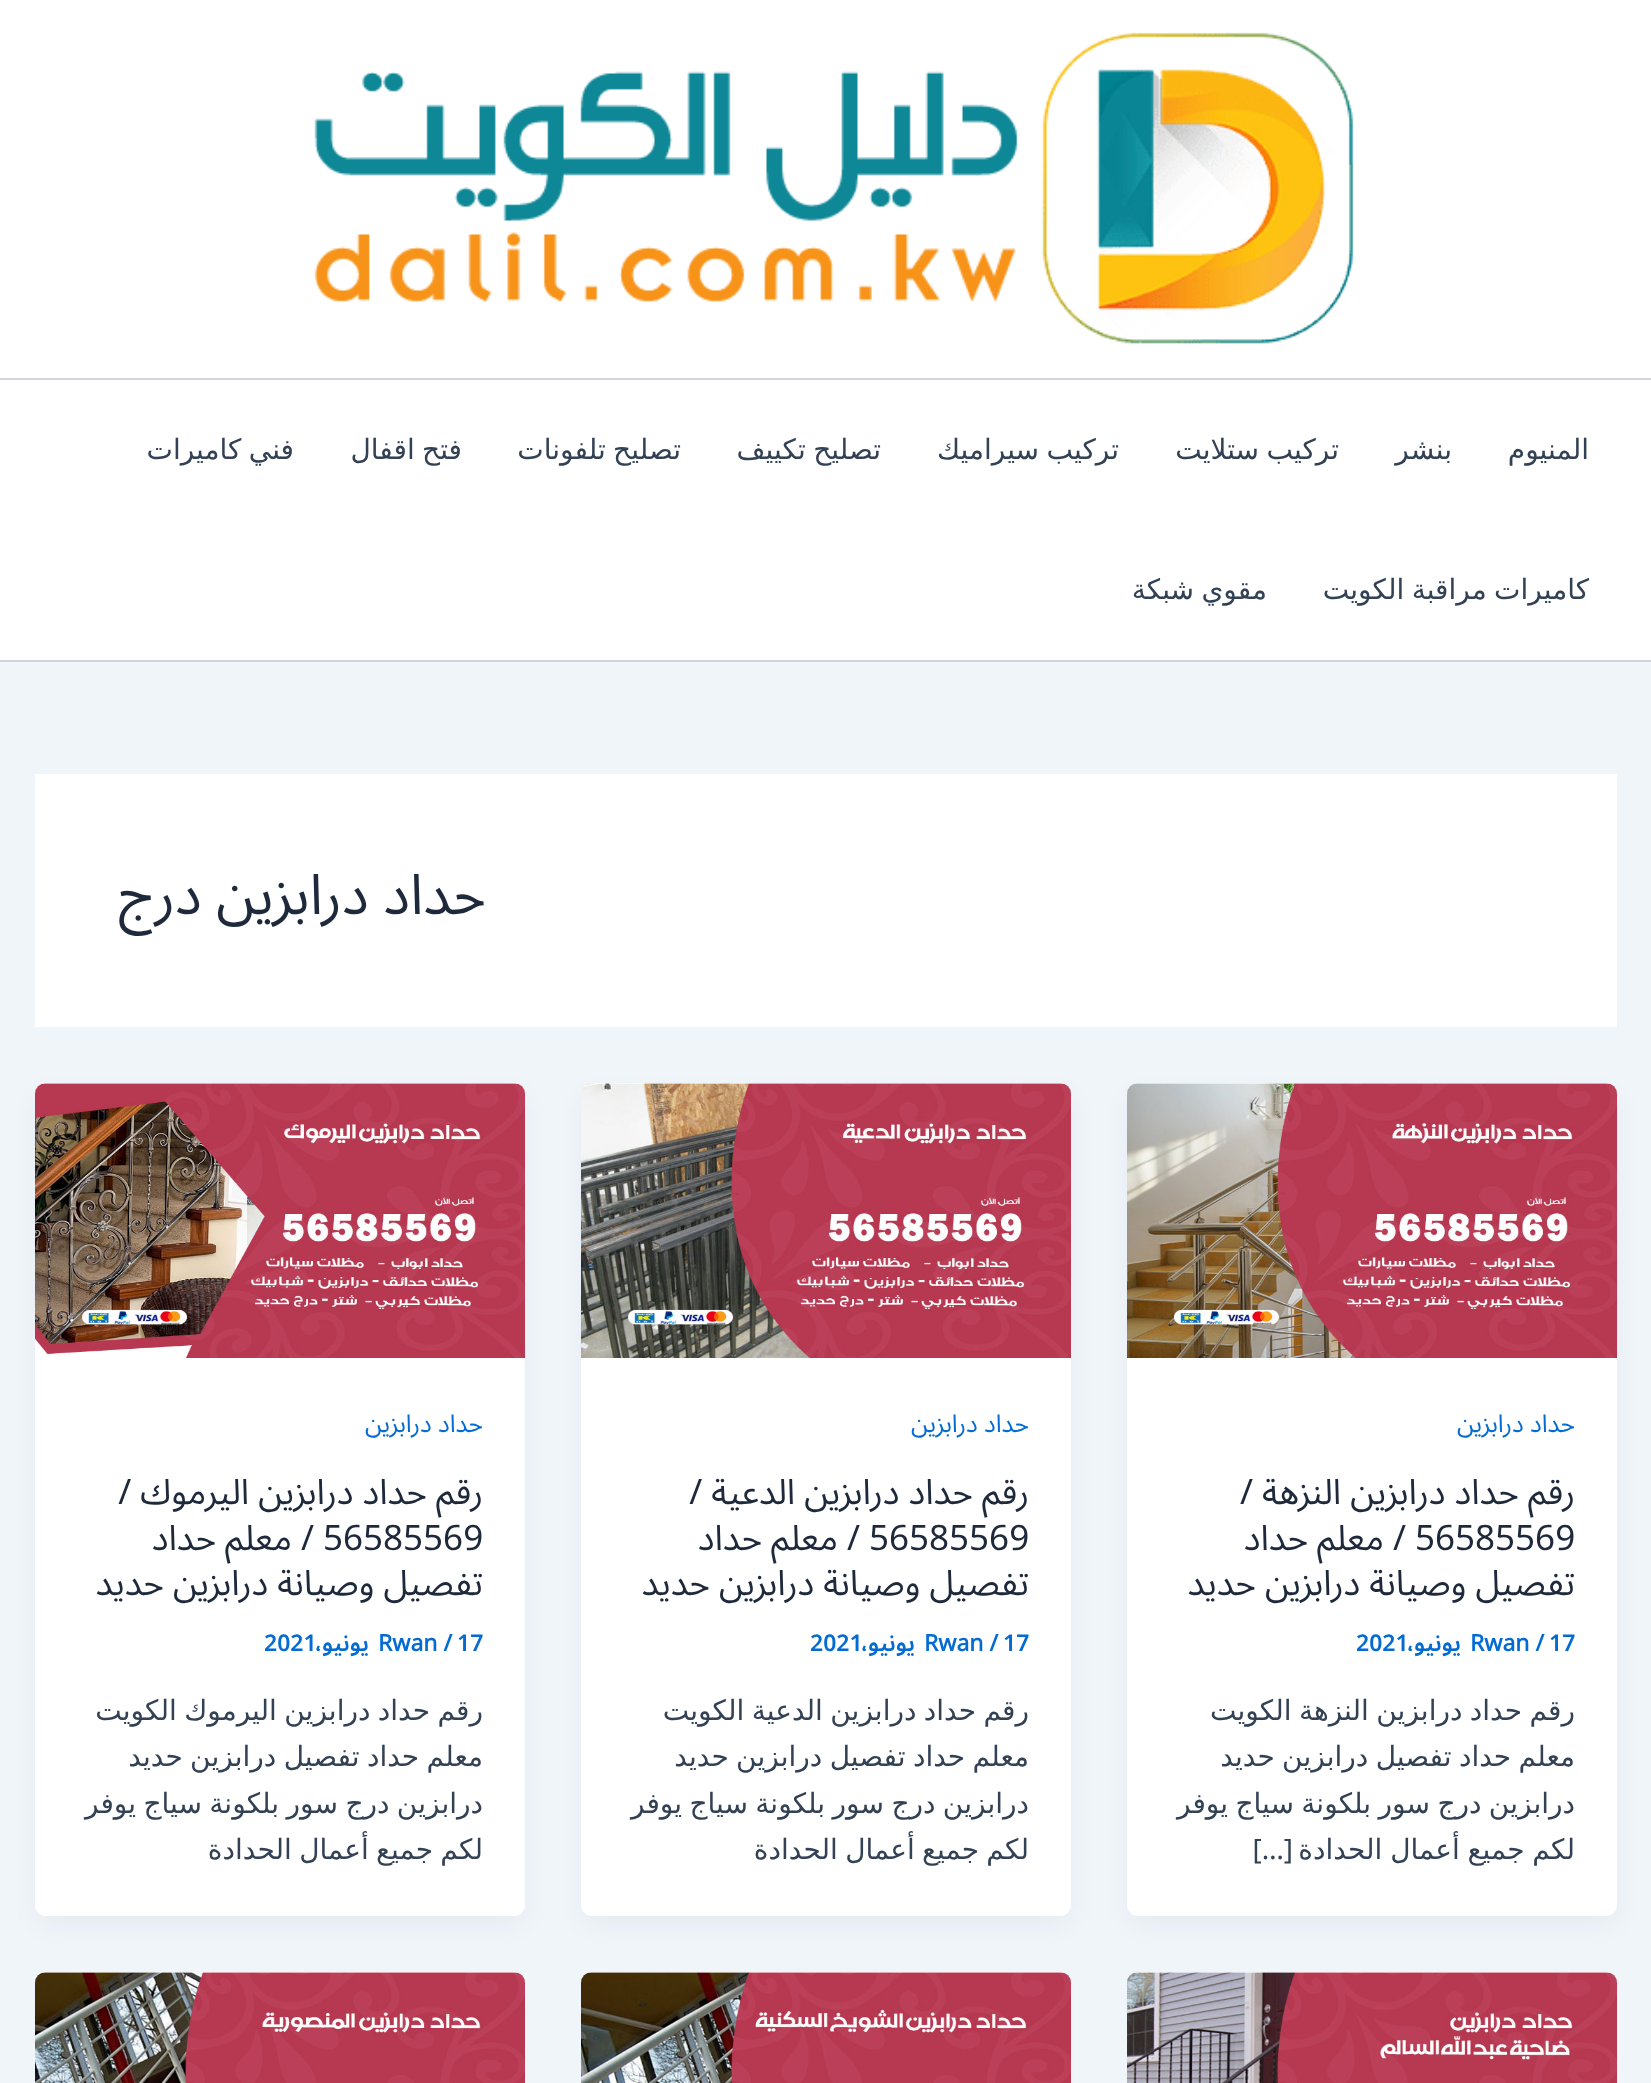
<?xml version="1.0" encoding="UTF-8"?>
<svg xmlns="http://www.w3.org/2000/svg" xmlns:xlink="http://www.w3.org/1999/xlink" width="1651" height="2083">
  <rect width="100%" height="100%" fill="#f0f5fa" />
  <rect width="1651" height="378" fill="#ffffff" />
  <rect y="378" width="1651" height="2" fill="#d1d5db" />
  <image x="314" y="32" width="1040" height="313" xlink:href="image1.png" />
  <rect y="380" width="1651" height="280" fill="#ffffff" />
  <rect y="660" width="1651" height="2" fill="#d1d5db" />
  <rect x="35" y="774" width="1582" height="253" fill="#ffffff" />
  <rect x="1131" y="1097" width="483" height="826" rx="7" fill="#101828" fill-opacity="0.05" filter="blur(13px)" />
  <rect x="1127" y="1083" width="490" height="833" rx="11" fill="#ffffff" />
  <image x="1127" y="1083" width="490" height="275" xlink:href="image2.png" />
  <rect x="585" y="1097" width="483" height="826" rx="7" fill="#101828" fill-opacity="0.05" filter="blur(13px)" />
  <rect x="581" y="1083" width="490" height="833" rx="11" fill="#ffffff" />
  <image x="581" y="1083" width="490" height="275" xlink:href="image3.png" />
  <rect x="39" y="1097" width="483" height="826" rx="7" fill="#101828" fill-opacity="0.05" filter="blur(13px)" />
  <rect x="35" y="1083" width="490" height="833" rx="11" fill="#ffffff" />
  <image x="35" y="1083" width="490" height="275" xlink:href="image4.png" />
  <rect x="1127" y="1972" width="490" height="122" rx="11" fill="#ffffff" />
  <image x="1127" y="1972" width="490" height="111" xlink:href="image5.png" />
  <rect x="581" y="1972" width="490" height="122" rx="11" fill="#ffffff" />
  <image x="581" y="1972" width="490" height="111" xlink:href="image6.png" />
  <rect x="35" y="1972" width="490" height="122" rx="11" fill="#ffffff" />
  <image x="35" y="1972" width="490" height="111" xlink:href="image7.png" />
  <text x="1589" y="459" style="font-family: DejaVu Sans; font-size: 28px; direction: rtl; fill: #334155">المنيوم</text>
  <text x="1452" y="459" style="font-family: DejaVu Sans; font-size: 28px; direction: rtl; fill: #334155">بنشر</text>
  <text x="1339" y="459" word-spacing="-1.5" style="font-family: DejaVu Sans; font-size: 28px; direction: rtl; fill: #334155">تركيب ستلايت</text>
  <text x="1119" y="459" word-spacing="-1.5" style="font-family: DejaVu Sans; font-size: 28px; direction: rtl; fill: #334155">تركيب سيراميك</text>
  <text x="881" y="459" word-spacing="-1.5" style="font-family: DejaVu Sans; font-size: 28px; direction: rtl; fill: #334155">تصليح تكييف</text>
  <text x="681" y="459" word-spacing="-1.5" style="font-family: DejaVu Sans; font-size: 28px; direction: rtl; fill: #334155">تصليح تلفونات</text>
  <text x="462" y="459" word-spacing="-1.5" style="font-family: DejaVu Sans; font-size: 28px; direction: rtl; fill: #334155">فتح اقفال</text>
  <text x="294" y="459" word-spacing="-1.5" style="font-family: DejaVu Sans; font-size: 28px; direction: rtl; fill: #334155">فني كاميرات</text>
  <text x="1589" y="599" word-spacing="-1.5" style="font-family: DejaVu Sans; font-size: 28px; direction: rtl; fill: #334155">كاميرات مراقبة الكويت</text>
  <text x="1267" y="599" word-spacing="-1.5" style="font-family: DejaVu Sans; font-size: 28px; direction: rtl; fill: #334155">مقوي شبكة</text>
  <text x="486" y="914" style="font-family: Noto Sans Arabic; font-size: 56px; direction: rtl; fill: #1e293b">حداد درابزين درج</text>
  <text x="1575" y="1432" style="font-family: Noto Sans Arabic; font-size: 24.5px; direction: rtl; fill: #046bd2">حداد درابزين</text>
  <text x="1575" y="1504" style="font-family: Noto Sans Arabic; font-size: 35px; direction: rtl; fill: #1e293b">رقم حداد درابزين النزهة /</text>
  <text x="1415" y="1550" style="font-family: Noto Sans Arabic; font-size: 35px; fill: #1e293b">56585569</text>
  <text x="1406" y="1550" style="font-family: Noto Sans Arabic; font-size: 35px; direction: rtl; fill: #1e293b">/ معلم حداد</text>
  <text x="1575" y="1595" style="font-family: Noto Sans Arabic; font-size: 35px; direction: rtl; fill: #1e293b">تفصيل وصيانة درابزين حديد</text>
  <text x="1549" y="1651" style="font-family: Noto Sans Arabic; font-size: 23px; font-weight: 600; fill: #046bd2">17</text>
  <text x="1470" y="1651" style="font-family: Noto Sans Arabic; font-size: 23px; font-weight: bold; fill: #046bd2">Rwan /</text>
  <text x="1461" y="1651" style="font-family: Noto Sans Arabic; font-size: 23px; font-weight: 600; direction: rtl; fill: #046bd2">يونيو،</text>
  <text x="1356" y="1651" style="font-family: Noto Sans Arabic; font-size: 23px; font-weight: 600; fill: #046bd2">2021</text>
  <text x="1575" y="1720" word-spacing="-1.5" style="font-family: DejaVu Sans; font-size: 28px; direction: rtl; fill: #334155">رقم حداد درابزين النزهة الكويت</text>
  <text x="1575" y="1766" word-spacing="-1.5" style="font-family: DejaVu Sans; font-size: 28px; direction: rtl; fill: #334155">معلم حداد تفصيل درابزين حديد</text>
  <text x="1575" y="1813" word-spacing="-1.5" style="font-family: DejaVu Sans; font-size: 28px; direction: rtl; fill: #334155">درابزين درج سور بلكونة سياج يوفر</text>
  <text x="1575" y="1859" word-spacing="-1" style="font-family: DejaVu Sans; font-size: 28px; direction: rtl; fill: #334155">لكم جميع أعمال الحدادة</text>
  <text x="1293" y="1859" style="font-family: 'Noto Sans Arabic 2'; font-size: 28px; direction: rtl; fill: #334155">[…]</text>
  <text x="1029" y="1432" style="font-family: Noto Sans Arabic; font-size: 24.5px; direction: rtl; fill: #046bd2">حداد درابزين</text>
  <text x="1029" y="1504" style="font-family: Noto Sans Arabic; font-size: 35px; direction: rtl; fill: #1e293b">رقم حداد درابزين الدعية /</text>
  <text x="869" y="1550" style="font-family: Noto Sans Arabic; font-size: 35px; fill: #1e293b">56585569</text>
  <text x="860" y="1550" style="font-family: Noto Sans Arabic; font-size: 35px; direction: rtl; fill: #1e293b">/ معلم حداد</text>
  <text x="1029" y="1595" style="font-family: Noto Sans Arabic; font-size: 35px; direction: rtl; fill: #1e293b">تفصيل وصيانة درابزين حديد</text>
  <text x="1003" y="1651" style="font-family: Noto Sans Arabic; font-size: 23px; font-weight: 600; fill: #046bd2">17</text>
  <text x="924" y="1651" style="font-family: Noto Sans Arabic; font-size: 23px; font-weight: bold; fill: #046bd2">Rwan /</text>
  <text x="915" y="1651" style="font-family: Noto Sans Arabic; font-size: 23px; font-weight: 600; direction: rtl; fill: #046bd2">يونيو،</text>
  <text x="810" y="1651" style="font-family: Noto Sans Arabic; font-size: 23px; font-weight: 600; fill: #046bd2">2021</text>
  <text x="1029" y="1720" word-spacing="-1.5" style="font-family: DejaVu Sans; font-size: 28px; direction: rtl; fill: #334155">رقم حداد درابزين الدعية الكويت</text>
  <text x="1029" y="1766" word-spacing="-1.5" style="font-family: DejaVu Sans; font-size: 28px; direction: rtl; fill: #334155">معلم حداد تفصيل درابزين حديد</text>
  <text x="1029" y="1813" word-spacing="-1.5" style="font-family: DejaVu Sans; font-size: 28px; direction: rtl; fill: #334155">درابزين درج سور بلكونة سياج يوفر</text>
  <text x="1029" y="1859" word-spacing="-1.5" style="font-family: DejaVu Sans; font-size: 28px; direction: rtl; fill: #334155">لكم جميع أعمال الحدادة</text>
  <text x="483" y="1432" style="font-family: Noto Sans Arabic; font-size: 24.5px; direction: rtl; fill: #046bd2">حداد درابزين</text>
  <text x="483" y="1504" style="font-family: Noto Sans Arabic; font-size: 35px; direction: rtl; fill: #1e293b">رقم حداد درابزين اليرموك /</text>
  <text x="323" y="1550" style="font-family: Noto Sans Arabic; font-size: 35px; fill: #1e293b">56585569</text>
  <text x="314" y="1550" style="font-family: Noto Sans Arabic; font-size: 35px; direction: rtl; fill: #1e293b">/ معلم حداد</text>
  <text x="483" y="1595" style="font-family: Noto Sans Arabic; font-size: 35px; direction: rtl; fill: #1e293b">تفصيل وصيانة درابزين حديد</text>
  <text x="457" y="1651" style="font-family: Noto Sans Arabic; font-size: 23px; font-weight: 600; fill: #046bd2">17</text>
  <text x="378" y="1651" style="font-family: Noto Sans Arabic; font-size: 23px; font-weight: bold; fill: #046bd2">Rwan /</text>
  <text x="369" y="1651" style="font-family: Noto Sans Arabic; font-size: 23px; font-weight: 600; direction: rtl; fill: #046bd2">يونيو،</text>
  <text x="264" y="1651" style="font-family: Noto Sans Arabic; font-size: 23px; font-weight: 600; fill: #046bd2">2021</text>
  <text x="483" y="1720" word-spacing="-1.5" style="font-family: DejaVu Sans; font-size: 28px; direction: rtl; fill: #334155">رقم حداد درابزين اليرموك الكويت</text>
  <text x="483" y="1766" word-spacing="-1.5" style="font-family: DejaVu Sans; font-size: 28px; direction: rtl; fill: #334155">معلم حداد تفصيل درابزين حديد</text>
  <text x="483" y="1813" word-spacing="-1.5" style="font-family: DejaVu Sans; font-size: 28px; direction: rtl; fill: #334155">درابزين درج سور بلكونة سياج يوفر</text>
  <text x="483" y="1859" word-spacing="-1.5" style="font-family: DejaVu Sans; font-size: 28px; direction: rtl; fill: #334155">لكم جميع أعمال الحدادة</text>
</svg>
